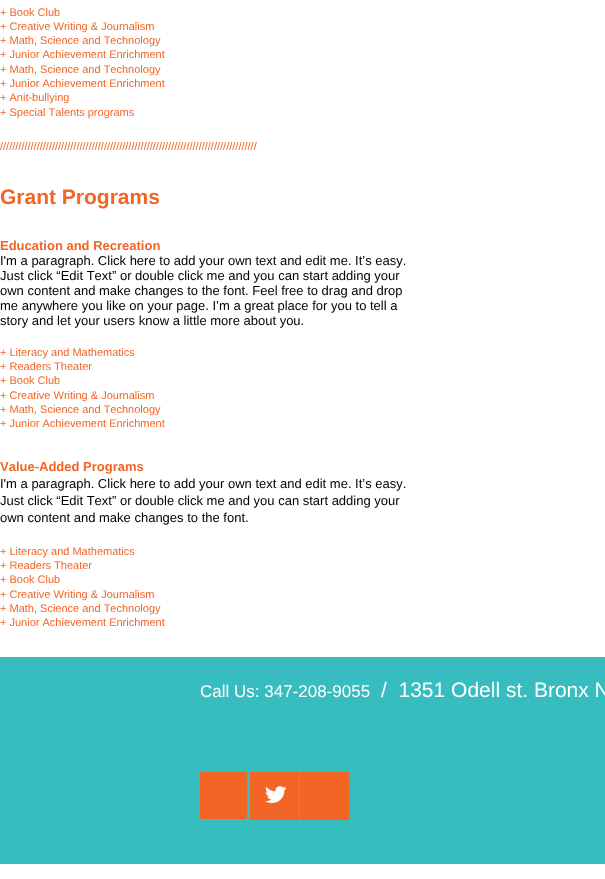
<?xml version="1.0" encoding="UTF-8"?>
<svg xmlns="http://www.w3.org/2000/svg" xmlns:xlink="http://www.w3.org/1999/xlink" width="605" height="879">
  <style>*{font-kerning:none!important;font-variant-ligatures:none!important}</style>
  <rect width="100%" height="100%" fill="#ffffff" />
  <rect y="657" width="605" height="207" fill="#37bdbf" />
  <rect x="200" y="772" width="47" height="47" fill="#f26524" />
  <rect x="250" y="772" width="49" height="48" fill="#f26524" />
  <image x="265" y="786" width="22" height="18" xlink:href="image1.png" />
  <rect x="300" y="772" width="49" height="48" fill="#f26524" />
  <text x="0" y="16" style="font-family: Liberation Sans; font-size: 11px; fill: #f26524">+ Book Club</text>
  <text x="0" y="30" style="font-family: Liberation Sans; font-size: 11px; fill: #f26524">+ Creative Writing &amp; Journalism</text>
  <text x="0" y="44" style="font-family: Liberation Sans; font-size: 11px; fill: #f26524">+ Math, Science and Technology</text>
  <text x="0" y="58" style="font-family: Liberation Sans; font-size: 11px; fill: #f26524">+ Junior Achievement Enrichment</text>
  <text x="0" y="73" style="font-family: Liberation Sans; font-size: 11px; fill: #f26524">+ Math, Science and Technology</text>
  <text x="0" y="87" style="font-family: Liberation Sans; font-size: 11px; fill: #f26524">+ Junior Achievement Enrichment</text>
  <text x="0" y="101" style="font-family: Liberation Sans; font-size: 11px; fill: #f26524">+ Anit-bullying</text>
  <text x="0" y="116" style="font-family: Liberation Sans; font-size: 11px; fill: #f26524">+ Special Talents programs</text>
  <text x="0" y="150" style="font-family: Liberation Sans; font-size: 11px; fill: #f26524">////////////////////////////////////////////////////////////////////////////////////</text>
  <text x="0" y="204" style="font-family: Liberation Sans; font-size: 21px; font-weight: bold; fill: #f26524">Grant Programs</text>
  <text x="0" y="250" style="font-family: Liberation Sans; font-size: 13px; font-weight: bold; fill: #f26524">Education and Recreation</text>
  <text x="0" y="265" style="font-family: Liberation Sans; font-size: 13px; fill: #000000">I'm a paragraph. Click here to add your own text and edit me. It’s easy.</text>
  <text x="0" y="280" style="font-family: Liberation Sans; font-size: 13px; fill: #000000">Just click “Edit Text” or double click me and you can start adding your</text>
  <text x="0" y="295" style="font-family: Liberation Sans; font-size: 13px; fill: #000000">own content and make changes to the font. Feel free to drag and drop</text>
  <text x="0" y="310" style="font-family: Liberation Sans; font-size: 13px; fill: #000000">me anywhere you like on your page. I’m a great place for you to tell a</text>
  <text x="0" y="325" style="font-family: Liberation Sans; font-size: 13px; fill: #000000">story and let your users know a little more about you.</text>
  <text x="0" y="356" style="font-family: Liberation Sans; font-size: 11px; fill: #f26524">+ Literacy and Mathematics</text>
  <text x="0" y="370" style="font-family: Liberation Sans; font-size: 11px; fill: #f26524">+ Readers Theater</text>
  <text x="0" y="384" style="font-family: Liberation Sans; font-size: 11px; fill: #f26524">+ Book Club</text>
  <text x="0" y="399" style="font-family: Liberation Sans; font-size: 11px; fill: #f26524">+ Creative Writing &amp; Journalism</text>
  <text x="0" y="413" style="font-family: Liberation Sans; font-size: 11px; fill: #f26524">+ Math, Science and Technology</text>
  <text x="0" y="427" style="font-family: Liberation Sans; font-size: 11px; fill: #f26524">+ Junior Achievement Enrichment</text>
  <text x="0" y="471" style="font-family: Liberation Sans; font-size: 13px; font-weight: bold; fill: #f26524">Value-Added Programs</text>
  <text x="0" y="488" style="font-family: Liberation Sans; font-size: 13px; fill: #000000">I'm a paragraph. Click here to add your own text and edit me. It’s easy.</text>
  <text x="0" y="505" style="font-family: Liberation Sans; font-size: 13px; fill: #000000">Just click “Edit Text” or double click me and you can start adding your</text>
  <text x="0" y="522" style="font-family: Liberation Sans; font-size: 13px; fill: #000000">own content and make changes to the font.</text>
  <text x="0" y="555" style="font-family: Liberation Sans; font-size: 11px; fill: #f26524">+ Literacy and Mathematics</text>
  <text x="0" y="569" style="font-family: Liberation Sans; font-size: 11px; fill: #f26524">+ Readers Theater</text>
  <text x="0" y="583" style="font-family: Liberation Sans; font-size: 11px; fill: #f26524">+ Book Club</text>
  <text x="0" y="598" style="font-family: Liberation Sans; font-size: 11px; fill: #f26524">+ Creative Writing &amp; Journalism</text>
  <text x="0" y="612" style="font-family: Liberation Sans; font-size: 11px; fill: #f26524">+ Math, Science and Technology</text>
  <text x="0" y="626" style="font-family: Liberation Sans; font-size: 11px; fill: #f26524">+ Junior Achievement Enrichment</text>
  <text x="200" y="697" style="font-family: Liberation Sans; font-size: 17px; fill: #ffffff">Call Us: 347-208-9055</text>
  <text x="381" y="697" style="font-family: Liberation Sans; font-size: 21px; fill: #ffffff" xml:space="preserve">/  1351 Odell st. Bronx N</text>
</svg>
